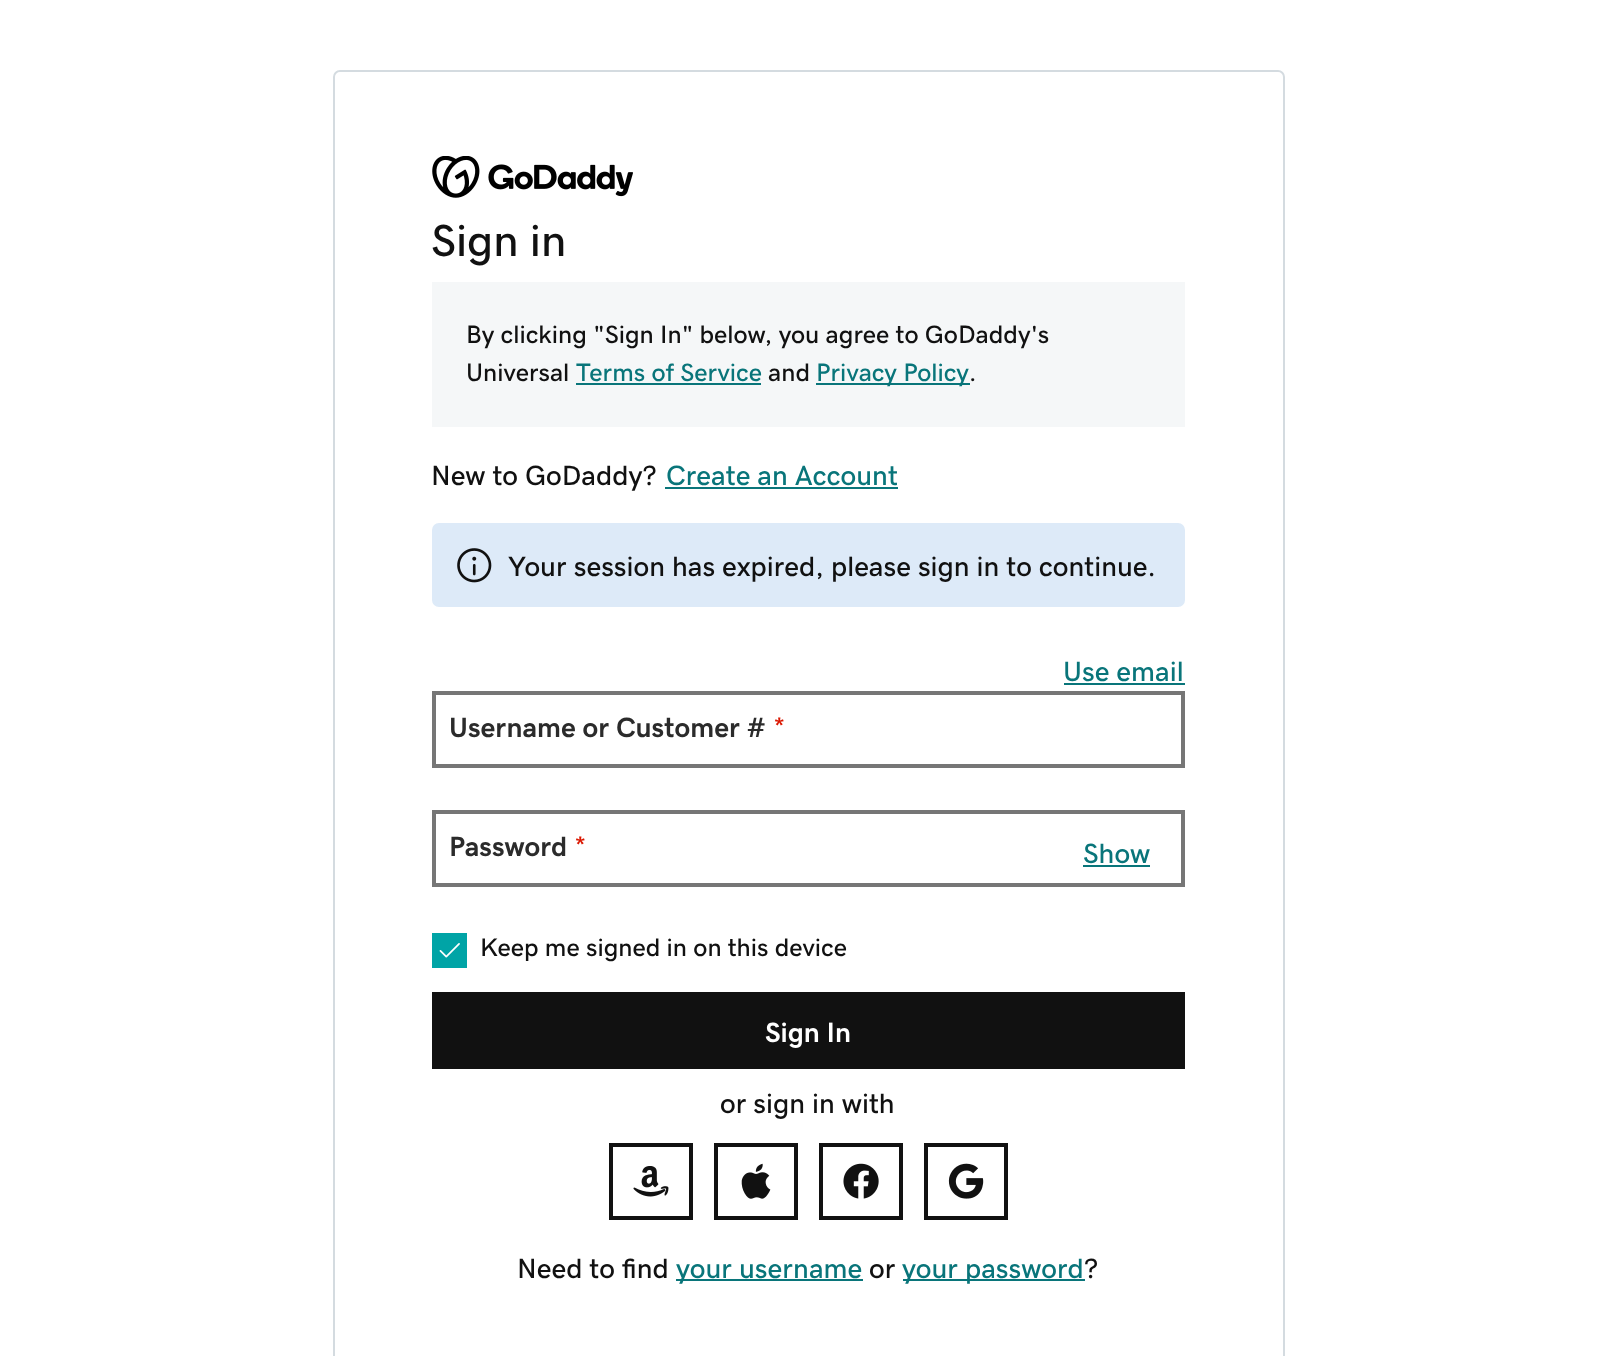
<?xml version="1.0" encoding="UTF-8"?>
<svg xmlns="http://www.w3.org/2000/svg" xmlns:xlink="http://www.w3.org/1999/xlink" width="1615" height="1356">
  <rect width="100%" height="100%" fill="#ffffff" />
  <rect x="334" y="71" width="950" height="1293" rx="6" fill="none" stroke="#d4dbe0" stroke-width="2" />
  <image x="432" y="156" width="201" height="42" xlink:href="image1.png" />
  <rect x="432" y="282" width="753" height="145" fill="#f5f7f8" />
  <rect x="576" y="383" width="185" height="2" fill="#09757a" />
  <rect x="816" y="383" width="154" height="2" fill="#09757a" />
  <rect x="665" y="487" width="233" height="2" fill="#09757a" />
  <rect x="432" y="523" width="753" height="84" rx="7" fill="#ddeaf8" />
  <image x="457" y="548" width="35" height="35" xlink:href="image2.png" />
  <rect x="1064" y="683" width="121" height="2" fill="#09757a" />
  <rect x="434" y="693" width="749" height="73" fill="none" stroke="#767676" stroke-width="4" />
  <rect x="434" y="812" width="749" height="73" fill="none" stroke="#767676" stroke-width="4" />
  <rect x="1083" y="865" width="67" height="2" fill="#09757a" />
  <rect x="432" y="933" width="35" height="35" fill="#00a4a6" />
  <image x="439" y="943" width="21" height="15" xlink:href="image3.png" />
  <rect x="432" y="992" width="753" height="77" fill="#111111" />
  <rect x="611" y="1145" width="80" height="73" fill="none" stroke="#111111" stroke-width="4" />
  <image x="633" y="1166" width="36" height="31" xlink:href="image4.png" />
  <rect x="716" y="1145" width="80" height="73" fill="none" stroke="#111111" stroke-width="4" />
  <image x="741" y="1163" width="30" height="36" xlink:href="image5.png" />
  <rect x="821" y="1145" width="80" height="73" fill="none" stroke="#111111" stroke-width="4" />
  <image x="843" y="1163" width="36" height="36" xlink:href="image6.png" />
  <rect x="926" y="1145" width="80" height="73" fill="none" stroke="#111111" stroke-width="4" />
  <image x="948" y="1163" width="36" height="36" xlink:href="image7.png" />
  <rect x="676" y="1279" width="187" height="2" fill="#09757a" />
  <rect x="903" y="1279" width="182" height="2" fill="#09757a" />
  <text x="431" y="256" style="font-family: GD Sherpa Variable; font-size: 45px; font-weight: 500; fill: #111111">Sign in</text>
  <text x="466" y="343" style="font-family: GD Sherpa Variable; font-size: 25.2px; font-weight: 500; fill: #111111">By clicking "Sign In" below, you agree to GoDaddy's</text>
  <text x="466" y="381" style="font-family: GD Sherpa Variable; font-size: 25.2px; font-weight: 500; fill: #111111">Universal</text>
  <text x="576" y="381" style="font-family: GD Sherpa Variable; font-size: 25.2px; font-weight: 500; fill: #09757a">Terms of Service</text>
  <text x="768" y="381" style="font-family: GD Sherpa Variable; font-size: 25.2px; font-weight: 500; fill: #111111">and</text>
  <text x="816" y="381" style="font-family: GD Sherpa Variable; font-size: 25.2px; font-weight: 500; fill: #09757a">Privacy Policy</text>
  <text x="969" y="381" style="font-family: GD Sherpa Variable; font-size: 25.2px; font-weight: 500; fill: #111111">.</text>
  <text x="431" y="485" style="font-family: GD Sherpa Variable; font-size: 28px; font-weight: 500; fill: #111111">New to GoDaddy?</text>
  <text x="666" y="485" style="font-family: GD Sherpa Variable; font-size: 28px; font-weight: 500; fill: #09757a">Create an Account</text>
  <text x="508" y="576" style="font-family: GD Sherpa Variable; font-size: 28px; font-weight: 500; fill: #111111">Your session has expired, please sign in to continue.</text>
  <text x="1063" y="681" style="font-family: GD Sherpa Variable; font-size: 28px; font-weight: 500; fill: #09757a">Use email</text>
  <text x="449" y="737" style="font-family: GD Sherpa Variable; font-size: 28px; font-weight: bold; fill: #2b2b2b">Username or Customer #</text>
  <text x="773" y="737" style="font-family: GD Sherpa Variable; font-size: 28px; font-weight: 500; fill: #db1802">*</text>
  <text x="449" y="856" style="font-family: GD Sherpa Variable; font-size: 28px; font-weight: bold; fill: #2b2b2b">Password</text>
  <text x="574" y="856" style="font-family: GD Sherpa Variable; font-size: 28px; font-weight: 500; fill: #db1802">*</text>
  <text x="1083" y="863" style="font-family: GD Sherpa Variable; font-size: 28px; font-weight: 500; fill: #09757a">Show</text>
  <text x="480" y="956" style="font-family: GD Sherpa Variable; font-size: 25.2px; font-weight: 500; fill: #111111">Keep me signed in on this device</text>
  <text x="765" y="1042" style="font-family: GD Sherpa Variable; font-size: 28px; font-weight: bold; fill: #ffffff">Sign In</text>
  <text x="720" y="1113" style="font-family: GD Sherpa Variable; font-size: 28px; font-weight: 500; fill: #111111">or sign in with</text>
  <text x="517" y="1278" style="font-family: GD Sherpa Variable; font-size: 28px; font-weight: 500; fill: #111111">Need to find</text>
  <text x="676" y="1278" style="font-family: GD Sherpa Variable; font-size: 28px; font-weight: 500; fill: #09757a">your username</text>
  <text x="869" y="1278" style="font-family: GD Sherpa Variable; font-size: 28px; font-weight: 500; fill: #111111">or</text>
  <text x="902" y="1278" style="font-family: GD Sherpa Variable; font-size: 28px; font-weight: 500; fill: #09757a">your password</text>
  <text x="1084" y="1278" style="font-family: GD Sherpa Variable; font-size: 28px; font-weight: 500; fill: #111111">?</text>
</svg>
